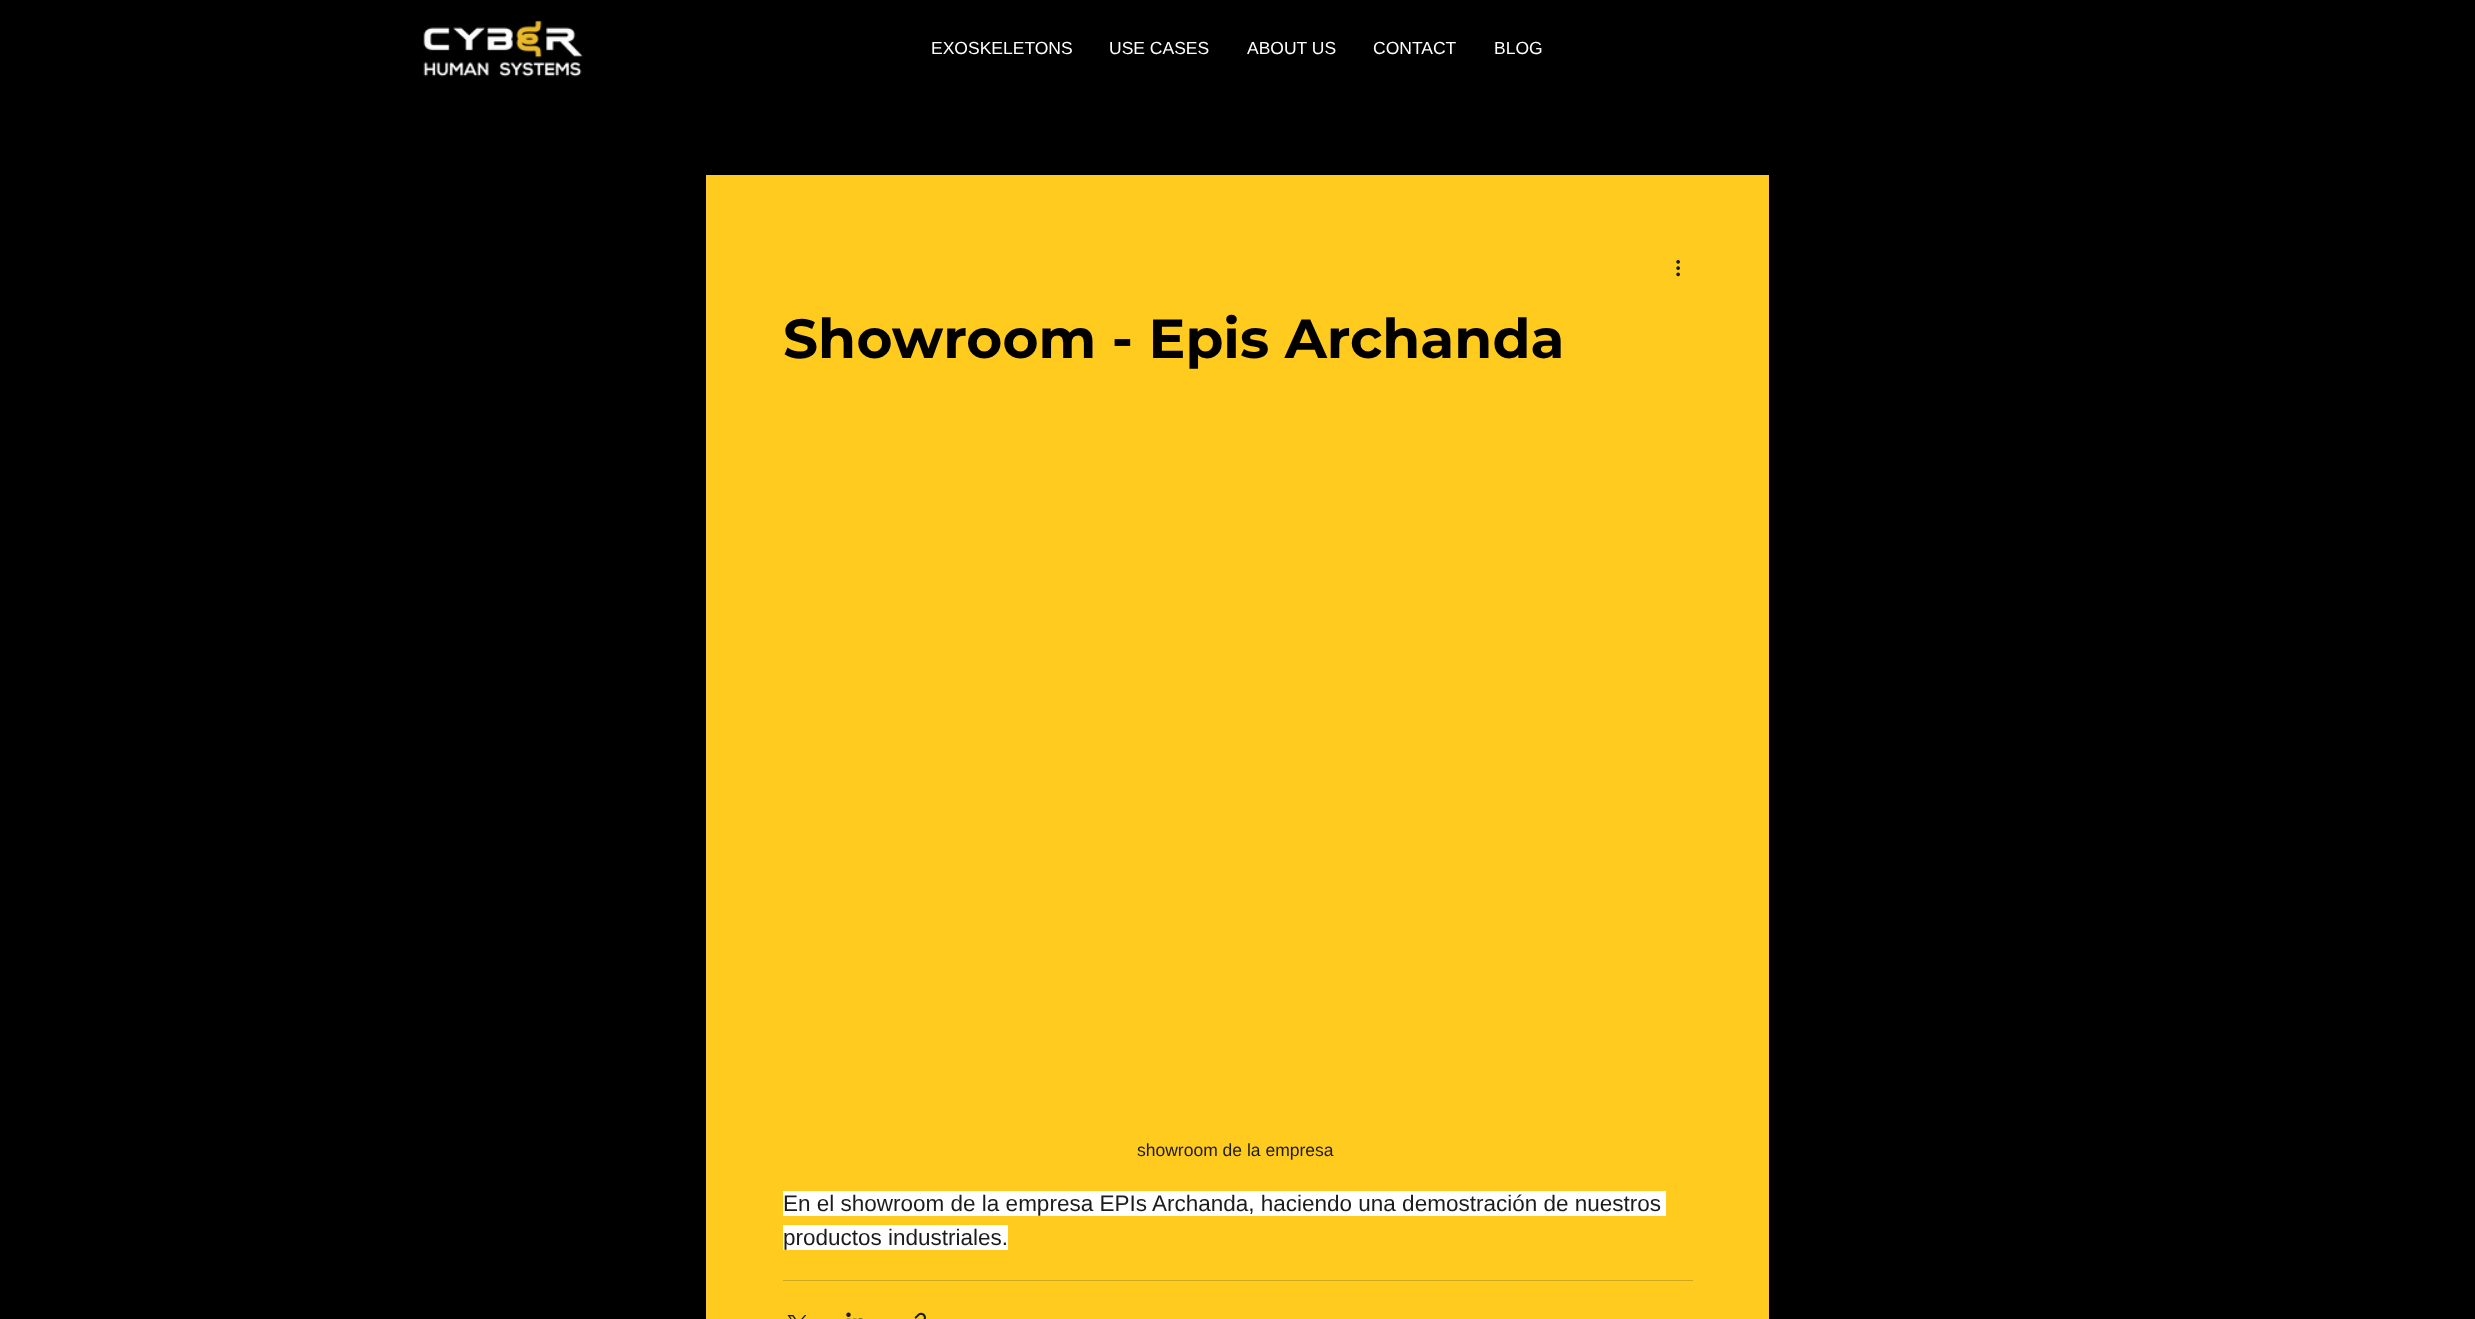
<?xml version="1.0" encoding="UTF-8"?>
<svg xmlns="http://www.w3.org/2000/svg" xmlns:xlink="http://www.w3.org/1999/xlink" width="2475" height="1319">
  <rect width="100%" height="100%" fill="#000000" />
  <image x="423" y="20" width="160" height="57" xlink:href="image1.png" />
  <rect x="706.5" y="175.5" width="1062" height="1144" fill="#ffcb1f" stroke="#f7ca32" />
  <image x="1676" y="260" width="4" height="17" xlink:href="image2.png" />
  <rect x="783" y="1191" width="883" height="25" fill="#ffffff" />
  <rect x="783" y="1225" width="225" height="25" fill="#ffffff" />
  <rect x="783" y="1280" width="910" height="1" fill="#d2a81e" />
  <image x="787" y="1315" width="19" height="4" xlink:href="image3.png" />
  <image x="846" y="1312" width="17" height="7" xlink:href="image4.png" />
  <image x="914" y="1312" width="12" height="7" xlink:href="image5.png" />
  <text x="931" y="54" style="font-family: Liberation Sans; font-size: 17.5px; fill: #ffffff">EXOSKELETONS</text>
  <text x="1109" y="54" style="font-family: Liberation Sans; font-size: 17.5px; fill: #ffffff">USE CASES</text>
  <text x="1247" y="54" style="font-family: Liberation Sans; font-size: 17.5px; fill: #ffffff">ABOUT US</text>
  <text x="1373" y="54" style="font-family: Liberation Sans; font-size: 17.5px; fill: #ffffff">CONTACT</text>
  <text x="1494" y="54" style="font-family: Liberation Sans; font-size: 17.5px; fill: #ffffff">BLOG</text>
  <text x="783" y="358" style="font-family: Montserrat; font-size: 55px; font-weight: bold; fill: #000000">Showroom - Epis Archanda</text>
  <text x="1137" y="1156" style="font-family: Liberation Sans; font-size: 17.5px; fill: #1c1c1c">showroom de la empresa</text>
  <text x="783" y="1211" style="font-family: Liberation Sans; font-size: 22.5px; fill: #1c1c1c">En el showroom de la empresa EPIs Archanda, haciendo una demostración de nuestros</text>
  <text x="783" y="1245" style="font-family: Liberation Sans; font-size: 22.5px; fill: #1c1c1c">productos industriales.</text>
</svg>
